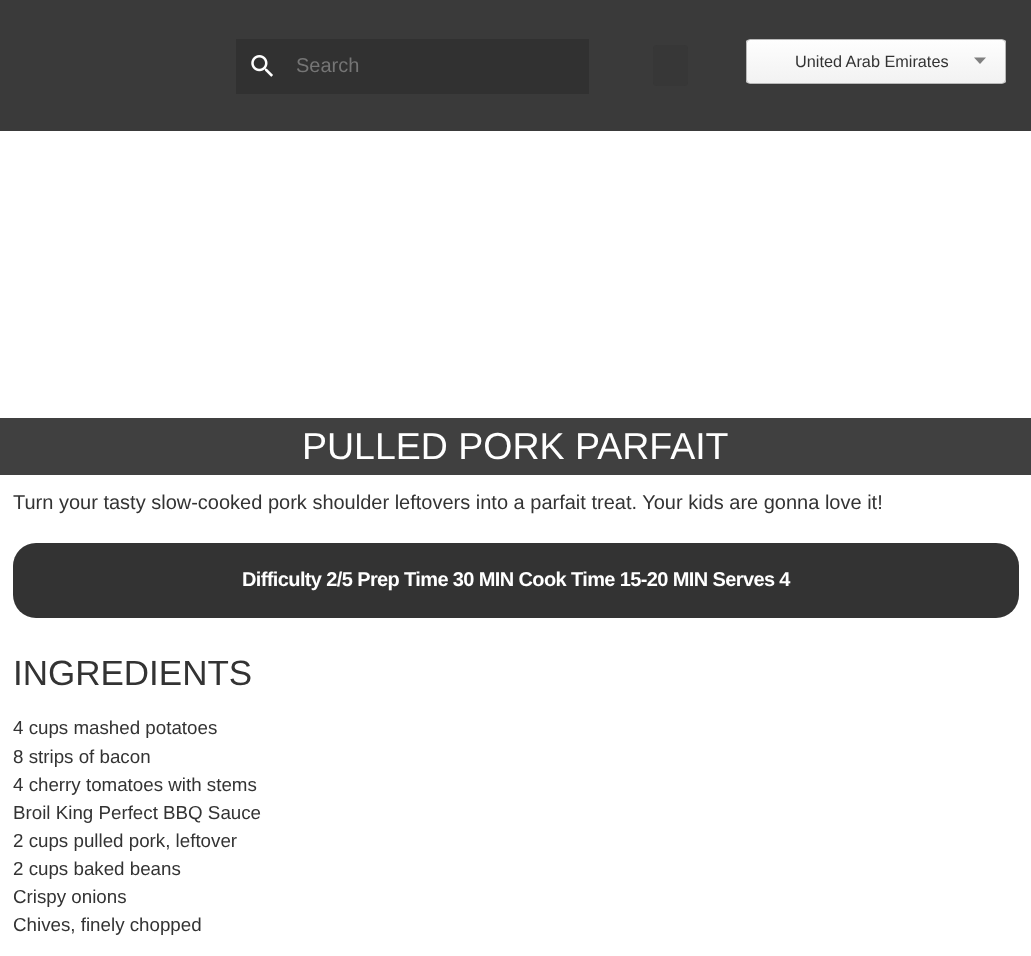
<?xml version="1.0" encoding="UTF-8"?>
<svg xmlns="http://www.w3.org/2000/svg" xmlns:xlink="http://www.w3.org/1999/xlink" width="1031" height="956">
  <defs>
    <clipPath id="clip1"><rect x="746" y="39" width="260" height="45" rx="4" /></clipPath>
    <linearGradient id="g1" gradientUnits="userSpaceOnUse" x1="876" y1="40" x2="876" y2="83"><stop offset="0" stop-color="#fefefe" /><stop offset="1" stop-color="#f2f2f2" /></linearGradient>
  </defs>
  <rect width="100%" height="100%" fill="#ffffff" />
  <rect width="1031" height="131" fill="#3a3a3a" />
  <rect x="236" y="39" width="353" height="55" fill="#313131" />
  <image x="251" y="55" width="22" height="22" xlink:href="image1.png" />
  <rect x="653" y="45" width="35" height="41" rx="4" fill="#373737" />
  <path d="M 746 43 v 38 c 0 2 2 4 4 4 h 252 c 2 0 4 -2 4 -4 c -1 2 -2 3 -4 3 h -252 c -2 0 -4 -2 -4 -4 z" fill="#373737" />
  <g clip-path="url(#clip1)">
    <rect x="746" y="40" width="260" height="43" fill="url(#g1)" />
  </g>
  <rect x="746.5" y="39.5" width="259" height="44" rx="3.5" fill="none" stroke="#b8b8b8" />
  <path d="M 974 57.5 h 12 l -6 6.5 z" fill="#808080" />
  <rect y="418" width="1031" height="57" fill="#404040" />
  <rect x="13" y="543" width="1006" height="75" rx="23" fill="#333333" />
  <text x="296" y="72" style="font-family: Liberation Sans; font-size: 20px; fill: #757575">Search</text>
  <text x="795" y="67" style="font-family: Liberation Sans; font-size: 16.25px; fill: #333333">United Arab Emirates</text>
  <text x="302" y="459" style="font-family: Liberation Sans; font-size: 37.5px; fill: #ffffff">PULLED PORK PARFAIT</text>
  <text x="13" y="509" style="font-family: Liberation Sans; font-size: 20px; fill: #333333">Turn your tasty slow-cooked pork shoulder leftovers into a parfait treat. Your kids are gonna love it!</text>
  <text x="242" y="586" style="font-family: Liberation Sans; font-size: 20px; font-weight: bold; letter-spacing: -0.62px; fill: #ffffff">Difficulty 2/5 Prep Time 30 MIN Cook Time 15-20 MIN Serves 4</text>
  <text x="13" y="685" style="font-family: Liberation Sans; font-size: 35px; fill: #333333">INGREDIENTS</text>
  <text x="13" y="734" style="font-family: Liberation Sans; font-size: 18.75px; fill: #333333">4 cups mashed potatoes</text>
  <text x="13" y="763" style="font-family: Liberation Sans; font-size: 18.75px; fill: #333333">8 strips of bacon</text>
  <text x="13" y="791" style="font-family: Liberation Sans; font-size: 18.75px; fill: #333333">4 cherry tomatoes with stems</text>
  <text x="13" y="819" style="font-family: Liberation Sans; font-size: 18.75px; fill: #333333">Broil King Perfect BBQ Sauce</text>
  <text x="13" y="847" style="font-family: Liberation Sans; font-size: 18.75px; fill: #333333">2 cups pulled pork, leftover</text>
  <text x="13" y="875" style="font-family: Liberation Sans; font-size: 18.75px; fill: #333333">2 cups baked beans</text>
  <text x="13" y="903" style="font-family: Liberation Sans; font-size: 18.75px; fill: #333333">Crispy onions</text>
  <text x="13" y="931" style="font-family: Liberation Sans; font-size: 18.75px; fill: #333333">Chives, finely chopped</text>
</svg>
